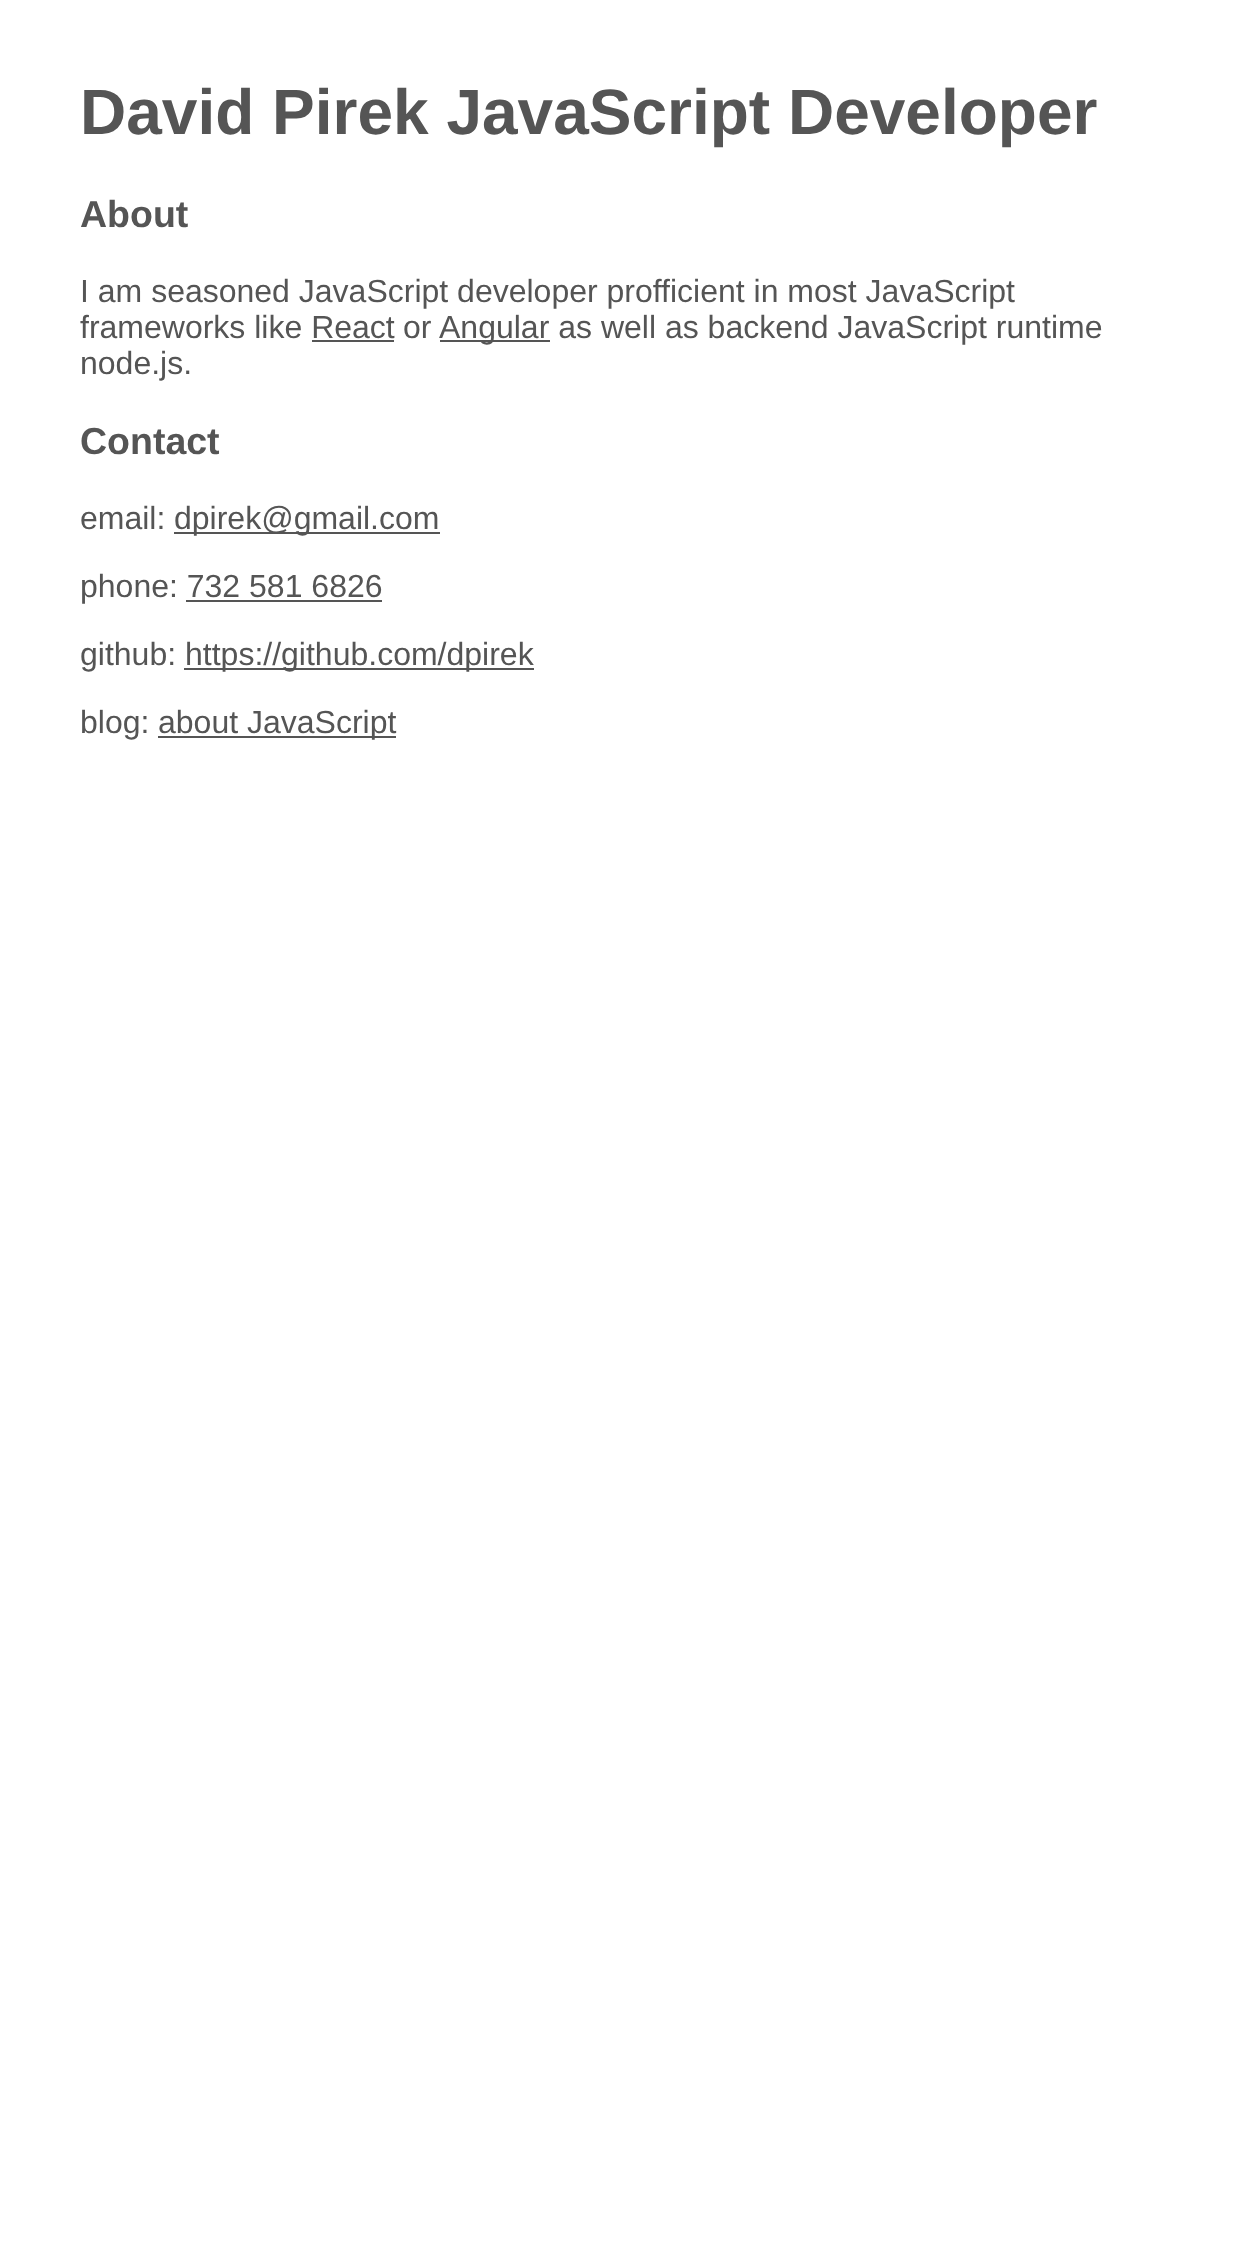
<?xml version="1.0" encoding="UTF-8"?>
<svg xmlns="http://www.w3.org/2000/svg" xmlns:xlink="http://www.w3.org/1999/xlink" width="1245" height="2264">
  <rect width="100%" height="100%" fill="#ffffff" />
  <rect x="440" y="340" width="110" height="2" fill="#555555" />
  <rect x="312" y="340" width="82" height="2" fill="#555555" />
  <rect x="174" y="532" width="266" height="2" fill="#555555" />
  <rect x="186" y="600" width="196" height="2" fill="#555555" />
  <rect x="184" y="668" width="350" height="2" fill="#555555" />
  <rect x="158" y="736" width="238" height="2" fill="#555555" />
  <text x="80" y="134" style="font-family: Liberation Sans; font-size: 64px; font-weight: bold; fill: #555555">David Pirek JavaScript Developer</text>
  <text x="80" y="227" style="font-family: Liberation Sans; font-size: 37.5px; font-weight: bold; fill: #555555">About</text>
  <text x="80" y="302" style="font-family: Liberation Sans; font-size: 32px; fill: #555555">I am seasoned JavaScript developer profficient in most JavaScript</text>
  <text x="80" y="338" style="font-family: Liberation Sans; font-size: 32px; fill: #555555">frameworks like React</text>
  <text x="403" y="338" style="font-family: Liberation Sans; font-size: 32px; fill: #555555">or</text>
  <text x="439" y="338" style="font-family: Liberation Sans; font-size: 32px; fill: #555555">Angular as well as backend JavaScript runtime</text>
  <text x="80" y="374" style="font-family: Liberation Sans; font-size: 32px; fill: #555555">node.js.</text>
  <text x="80" y="454" style="font-family: Liberation Sans; font-size: 37.5px; font-weight: bold; fill: #555555">Contact</text>
  <text x="80" y="529" style="font-family: Liberation Sans; font-size: 32px; fill: #555555">email:</text>
  <text x="174" y="529" style="font-family: Liberation Sans; font-size: 32px; fill: #555555">dpirek@gmail.com</text>
  <text x="80" y="597" style="font-family: Liberation Sans; font-size: 32px; fill: #555555">phone: 732 581 6826</text>
  <text x="80" y="665" style="font-family: Liberation Sans; font-size: 32px; fill: #555555">github:</text>
  <text x="185" y="665" style="font-family: Liberation Sans; font-size: 32px; fill: #555555">https://github.com/dpirek</text>
  <text x="80" y="733" style="font-family: Liberation Sans; font-size: 32px; fill: #555555">blog:</text>
  <text x="158" y="733" style="font-family: Liberation Sans; font-size: 32px; fill: #555555">about JavaScript</text>
</svg>
